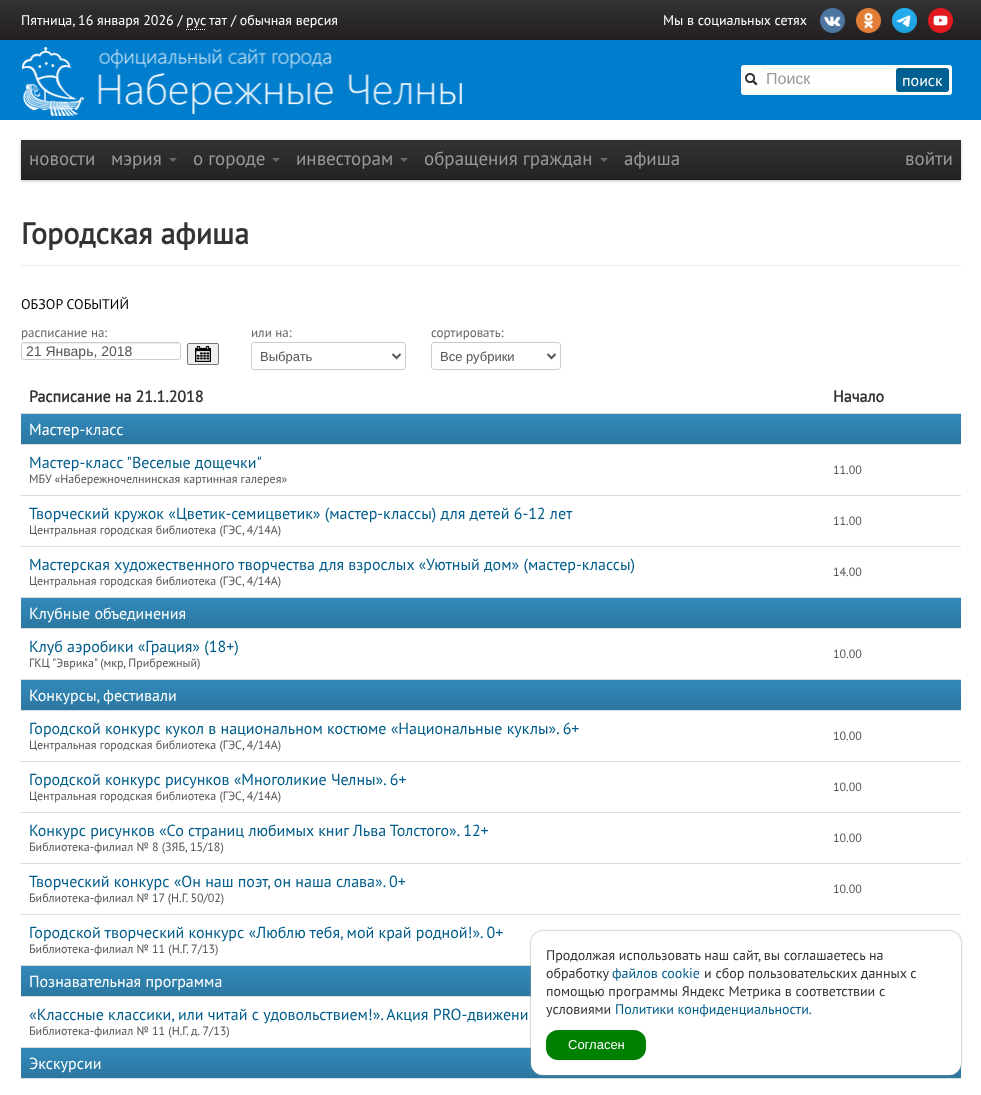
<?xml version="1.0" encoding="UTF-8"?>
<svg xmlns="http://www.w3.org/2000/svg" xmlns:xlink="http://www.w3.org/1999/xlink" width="981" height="1095">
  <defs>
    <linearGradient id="g1" gradientUnits="userSpaceOnUse" x1="491" y1="140" x2="491" y2="180"><stop offset="0" stop-color="#333333" /><stop offset="1" stop-color="#222222" /></linearGradient>
  </defs>
  <rect width="100%" height="100%" fill="#ffffff" />
  <image x="0" y="0" width="981" height="40" xlink:href="image1.png" />
  <path d="M 186 29.5 h 20" fill="none" stroke="#ffffff" stroke-dasharray="1 1" />
  <image x="820" y="8" width="25" height="25" xlink:href="image2.png" />
  <image x="856" y="8" width="25" height="25" xlink:href="image3.png" />
  <image x="892" y="8" width="25" height="25" xlink:href="image4.png" />
  <image x="928" y="8" width="25" height="25" xlink:href="image5.png" />
  <rect y="40" width="981" height="80" fill="#007dcd" />
  <image x="22" y="47" width="440" height="69" xlink:href="image6.png" />
  <rect x="741" y="65" width="211" height="30" rx="3" fill="#ffffff" />
  <image x="745" y="73" width="13" height="13" xlink:href="image7.png" />
  <path d="M 765 69 h 124 c 2 0 3 1 3 3 c 0 -2 0 -4 -2 -4 h -126 c -2 0 -2 2 -2 4 c 0 -2 1 -3 3 -3 z" fill="#ececec" />
  <rect x="896" y="68" width="53" height="24" rx="3" fill="#006092" />
  <rect x="21" y="141" width="940" height="40" fill="#000000" fill-opacity="0.25" filter="blur(1.5px)" />
  <rect x="21" y="140" width="940" height="39" fill="url(#g1)" />
  <rect x="21" y="179" width="940" height="1" fill="#1f1f1f" />
  <path d="M 169 158 h 8 l -4 4 z" fill="#6a6a6a" />
  <path d="M 272 158 h 8 l -4 4 z" fill="#6a6a6a" />
  <path d="M 400 158 h 8 l -4 4 z" fill="#6a6a6a" />
  <path d="M 600 158 h 8 l -4 4 z" fill="#6a6a6a" />
  <rect x="21" y="265" width="940" height="1" fill="#eeeeee" />
  <path d="M 24 344 h 154 c 1 0 2 1 2 2 c 0 -1 0 -3 -2 -3 h -154 l -1 1 l -1 2 c 0 -1 1 -2 2 -2 z" fill="#ececec" />
  <rect x="21.5" y="342.5" width="159" height="17" rx="2.5" fill="none" stroke="#cccccc" />
  <rect x="187.5" y="343.5" width="31" height="21" rx="1.5" fill="#efefef" stroke="#767676" />
  <image x="195" y="346" width="16" height="16" xlink:href="image8.png" />
  <rect x="251.5" y="342.5" width="154" height="27" rx="2.5" fill="none" stroke="#cccccc" />
  <path d="M 392.5 354 l 4 4 l 4 -4" fill="none" stroke="#555555" stroke-width="2" />
  <rect x="431.5" y="342.5" width="129" height="27" rx="2.5" fill="none" stroke="#cccccc" />
  <path d="M 547.5 354 l 4 4 l 4 -4" fill="none" stroke="#555555" stroke-width="2" />
  <rect x="20" y="413" width="941" height="1" fill="#dddddd" />
  <image x="21" y="414" width="940" height="30" xlink:href="image9.png" />
  <rect x="20" y="444" width="941" height="1" fill="#dddddd" />
  <rect x="20" y="495" width="941" height="1" fill="#dddddd" />
  <rect x="20" y="546" width="941" height="1" fill="#dddddd" />
  <rect x="20" y="597" width="941" height="1" fill="#dddddd" />
  <image x="21" y="598" width="940" height="30" xlink:href="image9.png" />
  <rect x="20" y="628" width="941" height="1" fill="#dddddd" />
  <rect x="20" y="679" width="941" height="1" fill="#dddddd" />
  <image x="21" y="680" width="940" height="30" xlink:href="image9.png" />
  <rect x="20" y="710" width="941" height="1" fill="#dddddd" />
  <rect x="20" y="761" width="941" height="1" fill="#dddddd" />
  <rect x="20" y="812" width="941" height="1" fill="#dddddd" />
  <rect x="20" y="863" width="941" height="1" fill="#dddddd" />
  <rect x="20" y="914" width="941" height="1" fill="#dddddd" />
  <rect x="20" y="965" width="511" height="1" fill="#dddddd" />
  <image x="21" y="966" width="510" height="30" xlink:href="image10.png" />
  <rect x="20" y="996" width="511" height="1" fill="#dddddd" />
  <rect x="20" y="1047" width="511" height="1" fill="#dddddd" />
  <image x="21" y="1048" width="940" height="30" xlink:href="image9.png" />
  <rect x="20" y="1078" width="941" height="1" fill="#dddddd" />
  <rect x="531" y="931" width="430" height="144" rx="12" fill="#989898" filter="blur(1px)" />
  <rect x="531" y="931" width="430" height="144" rx="12" fill="#ffffff" />
  <rect x="546" y="1030" width="100" height="30" rx="12" fill="#008000" />
  <text x="21" y="25" style="font-family: PT Sans; font-size: 14px; fill: #ffffff">Пятница, 16 января 2026 / рус</text>
  <text x="209" y="25" style="font-family: PT Sans; font-size: 14px; fill: #ffffff">тат</text>
  <text x="231" y="25" style="font-family: PT Sans; font-size: 14px; fill: #ffffff">/ обычная версия</text>
  <text x="663" y="25" style="font-family: PT Sans; font-size: 14px; fill: #ffffff">Мы в социальных сетях</text>
  <text x="766" y="84" style="font-family: Liberation Sans; font-size: 16px; fill: #999999">Поиск</text>
  <text x="902" y="86" style="font-family: PT Sans; font-size: 16px; fill: #ffffff">поиск</text>
  <text x="29" y="165" style="font-family: PT Sans; font-size: 19px; fill: #999999">новости</text>
  <text x="111" y="165" style="font-family: PT Sans; font-size: 19px; fill: #999999">мэрия</text>
  <text x="193" y="165" style="font-family: PT Sans; font-size: 19px; fill: #999999">о городе</text>
  <text x="296" y="165" style="font-family: PT Sans; font-size: 19px; fill: #999999">инвесторам</text>
  <text x="424" y="165" style="font-family: PT Sans; font-size: 19px; fill: #999999">обращения граждан</text>
  <text x="624" y="165" style="font-family: PT Sans; font-size: 19px; fill: #999999">афиша</text>
  <text x="905" y="165" style="font-family: PT Sans; font-size: 19px; fill: #999999">войти</text>
  <text x="21" y="244" style="font-family: PT Sans; font-size: 30px; font-weight: bold; fill: #333333">Городская афиша</text>
  <text x="21" y="309" style="font-family: PT Sans; font-size: 14px; fill: #000000">ОБЗОР СОБЫТИЙ</text>
  <text x="21" y="337" style="font-family: PT Sans; font-size: 13px; fill: #666666">расписание на:</text>
  <text x="26" y="356" style="font-family: Liberation Sans; font-size: 14px; fill: #555555">21 Январь, 2018</text>
  <text x="251" y="337" style="font-family: PT Sans; font-size: 13px; fill: #666666">или на:</text>
  <text x="260" y="361" style="font-family: Liberation Sans; font-size: 13px; fill: #555555">Выбрать</text>
  <text x="431" y="337" style="font-family: PT Sans; font-size: 13px; fill: #666666">сортировать:</text>
  <text x="440" y="361" style="font-family: Liberation Sans; font-size: 13px; fill: #555555">Все рубрики</text>
  <text x="29" y="402" style="font-family: PT Sans; font-size: 16px; font-weight: bold; fill: #333333">Расписание на 21.1.2018</text>
  <text x="833" y="402" style="font-family: PT Sans; font-size: 16px; font-weight: bold; fill: #333333">Начало</text>
  <text x="29" y="435" style="font-family: PT Sans; font-size: 16px; fill: #ffffff">Мастер-класс</text>
  <text x="29" y="468" style="font-family: PT Sans; font-size: 16px; fill: #005d8b">Мастер-класс "Веселые дощечки"</text>
  <text x="29" y="483" style="font-family: PT Sans; font-size: 12px; fill: #555555">МБУ «Набережночелнинская картинная галерея»</text>
  <text x="833" y="474" style="font-family: PT Sans; font-size: 12px; fill: #555555">11.00</text>
  <text x="29" y="519" style="font-family: PT Sans; font-size: 16px; fill: #005d8b">Творческий кружок «Цветик-семицветик» (мастер-классы) для детей 6-12 лет</text>
  <text x="29" y="534" style="font-family: PT Sans; font-size: 12px; fill: #555555">Центральная городская библиотека (ГЭС, 4/14А)</text>
  <text x="833" y="525" style="font-family: PT Sans; font-size: 12px; fill: #555555">11.00</text>
  <text x="29" y="570" style="font-family: PT Sans; font-size: 16px; fill: #005d8b">Мастерская художественного творчества для взрослых «Уютный дом» (мастер-классы)</text>
  <text x="29" y="585" style="font-family: PT Sans; font-size: 12px; fill: #555555">Центральная городская библиотека (ГЭС, 4/14А)</text>
  <text x="833" y="576" style="font-family: PT Sans; font-size: 12px; fill: #555555">14.00</text>
  <text x="29" y="619" style="font-family: PT Sans; font-size: 16px; fill: #ffffff">Клубные объединения</text>
  <text x="29" y="652" style="font-family: PT Sans; font-size: 16px; fill: #005d8b">Клуб аэробики «Грация» (18+)</text>
  <text x="29" y="667" style="font-family: PT Sans; font-size: 12px; fill: #555555">ГКЦ "Эврика" (мкр, Прибрежный)</text>
  <text x="833" y="658" style="font-family: PT Sans; font-size: 12px; fill: #555555">10.00</text>
  <text x="29" y="701" style="font-family: PT Sans; font-size: 16px; fill: #ffffff">Конкурсы, фестивали</text>
  <text x="29" y="734" style="font-family: PT Sans; font-size: 16px; fill: #005d8b">Городской конкурс кукол в национальном костюме «Национальные куклы». 6+</text>
  <text x="29" y="749" style="font-family: PT Sans; font-size: 12px; fill: #555555">Центральная городская библиотека (ГЭС, 4/14А)</text>
  <text x="833" y="740" style="font-family: PT Sans; font-size: 12px; fill: #555555">10.00</text>
  <text x="29" y="785" style="font-family: PT Sans; font-size: 16px; fill: #005d8b">Городской конкурс рисунков «Многоликие Челны». 6+</text>
  <text x="29" y="800" style="font-family: PT Sans; font-size: 12px; fill: #555555">Центральная городская библиотека (ГЭС, 4/14А)</text>
  <text x="833" y="791" style="font-family: PT Sans; font-size: 12px; fill: #555555">10.00</text>
  <text x="29" y="836" style="font-family: PT Sans; font-size: 16px; fill: #005d8b">Конкурс рисунков «Со страниц любимых книг Льва Толстого». 12+</text>
  <text x="29" y="851" style="font-family: PT Sans; font-size: 12px; fill: #555555">Библиотека-филиал № 8 (ЗЯБ, 15/18)</text>
  <text x="833" y="842" style="font-family: PT Sans; font-size: 12px; fill: #555555">10.00</text>
  <text x="29" y="887" style="font-family: PT Sans; font-size: 16px; fill: #005d8b">Творческий конкурс «Он наш поэт, он наша слава». 0+</text>
  <text x="29" y="902" style="font-family: PT Sans; font-size: 12px; fill: #555555">Библиотека-филиал № 17 (Н.Г. 50/02)</text>
  <text x="833" y="893" style="font-family: PT Sans; font-size: 12px; fill: #555555">10.00</text>
  <text x="29" y="938" style="font-family: PT Sans; font-size: 16px; fill: #005d8b">Городской творческий конкурс «Люблю тебя, мой край родной!». 0+</text>
  <text x="29" y="953" style="font-family: PT Sans; font-size: 12px; fill: #555555">Библиотека-филиал № 11 (Н.Г. 7/13)</text>
  <text x="29" y="987" style="font-family: PT Sans; font-size: 16px; fill: #ffffff">Познавательная программа</text>
  <text x="29" y="1020" style="font-family: PT Sans; font-size: 16px; fill: #005d8b">«Классные классики, или читай с удовольствием!». Акция PRO-движени</text>
  <text x="29" y="1035" style="font-family: PT Sans; font-size: 12px; fill: #555555">Библиотека-филиал № 11 (Н.Г. д. 7/13)</text>
  <text x="29" y="1069" style="font-family: PT Sans; font-size: 16px; fill: #ffffff">Экскурсии</text>
  <text x="546" y="960" style="font-family: PT Sans; font-size: 14px; fill: #333333">Продолжая использовать наш сайт, вы соглашаетесь на</text>
  <text x="546" y="978" style="font-family: PT Sans; font-size: 14px; fill: #333333">обработку</text>
  <text x="612" y="978" style="font-family: PT Sans; font-size: 14px; fill: #005d8b">файлов cookie</text>
  <text x="704" y="978" style="font-family: PT Sans; font-size: 14px; fill: #333333">и сбор пользовательских данных с</text>
  <text x="546" y="996" style="font-family: PT Sans; font-size: 14px; fill: #333333">помощью программы Яндекс Метрика в соответствии с</text>
  <text x="546" y="1014" style="font-family: PT Sans; font-size: 14px; fill: #333333">условиями</text>
  <text x="615" y="1014" style="font-family: PT Sans; font-size: 14px; fill: #005d8b">Политики конфиденциальности.</text>
  <text x="568" y="1049" style="font-family: Liberation Sans; font-size: 13px; fill: #ffffff">Согласен</text>
</svg>
